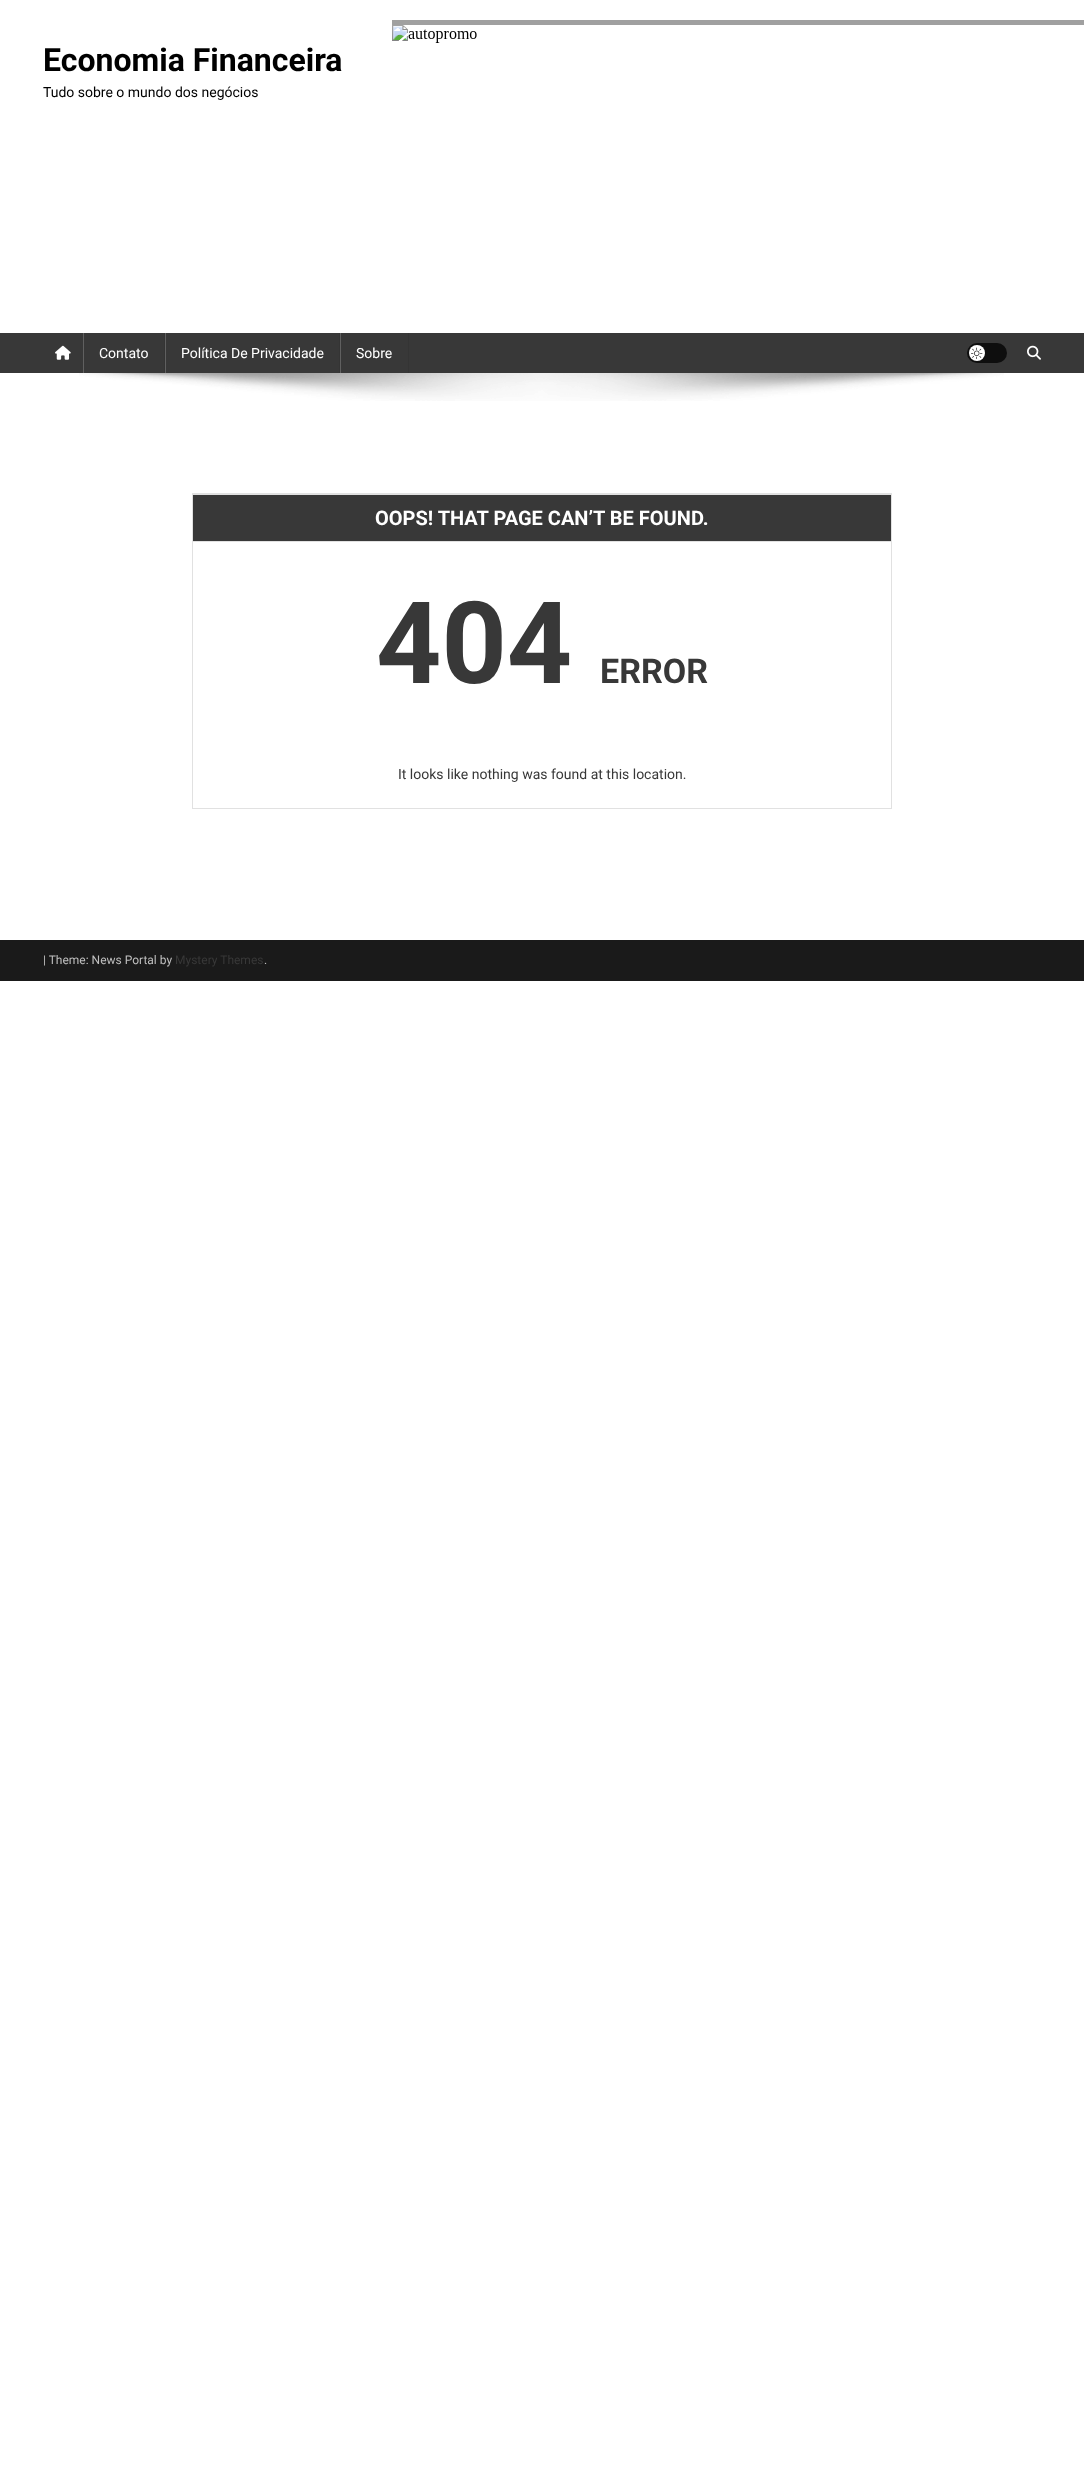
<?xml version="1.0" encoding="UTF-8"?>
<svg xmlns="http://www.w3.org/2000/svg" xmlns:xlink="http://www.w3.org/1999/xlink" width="1084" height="2475">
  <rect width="100%" height="100%" fill="#ffffff" />
  <rect x="392" y="20" width="692" height="5" fill="#a0a0a0" />
  <image x="392" y="25" width="85" height="18" xlink:href="image1.png" />
  <rect y="333" width="1084" height="40" fill="#383838" />
  <image x="55" y="345" width="16" height="15" xlink:href="image2.png" />
  <rect x="164" y="333" width="1" height="40" fill="#343434" />
  <rect x="83" y="333" width="1" height="40" fill="#606060" />
  <rect x="339" y="333" width="1" height="40" fill="#343434" />
  <rect x="165" y="333" width="1" height="40" fill="#606060" />
  <rect x="408" y="333" width="1" height="40" fill="#343434" />
  <rect x="340" y="333" width="1" height="40" fill="#606060" />
  <rect x="967" y="343" width="40" height="20" rx="10" fill="#0e0e0e" />
  <circle cx="977" cy="353" r="8" fill="#ffffff" />
  <image x="971" y="347" width="12" height="12" xlink:href="image3.png" />
  <image x="1027" y="345" width="14" height="15" xlink:href="image4.png" />
  <image x="79" y="373" width="925" height="28" xlink:href="image5.png" />
  <rect x="192.5" y="493.5" width="699" height="315" fill="none" stroke="#e1e1e1" />
  <rect x="193" y="495" width="698" height="46" fill="#383838" />
  <rect x="193" y="494" width="698" height="1" fill="#e1e1e1" />
  <rect x="193" y="541" width="698" height="1" fill="#e1e1e1" />
  <rect y="940" width="1084" height="41" fill="#1a1a1a" />
  <text x="43" y="71" style="font-family: Roboto; font-size: 32px; font-weight: bold; fill: #000000">Economia Financeira</text>
  <text x="43" y="97" style="font-family: Roboto; font-size: 14px; fill: #000000">Tudo sobre o mundo dos negócios</text>
  <text x="99" y="358" style="font-family: Roboto; font-size: 14px; fill: #ffffff">Contato</text>
  <text x="181" y="358" style="font-family: Roboto; font-size: 14px; fill: #ffffff">Política De Privacidade</text>
  <text x="356" y="358" style="font-family: Roboto; font-size: 14px; fill: #ffffff">Sobre</text>
  <text x="375" y="525" style="font-family: Roboto; font-size: 20px; font-weight: bold; fill: #ffffff">OOPS! THAT PAGE CAN’T BE FOUND.</text>
  <text x="376" y="683" style="font-family: Roboto; font-size: 114px; font-weight: bold; fill: #383838">404</text>
  <text x="600" y="683" style="font-family: Roboto; font-size: 34px; font-weight: bold; fill: #383838">ERROR</text>
  <text x="398" y="779" style="font-family: Roboto; font-size: 14px; fill: #383838">It looks like nothing was found at this location.</text>
  <text x="43" y="964" style="font-family: Roboto; font-size: 12px; fill: #bfbfbf">| Theme: News Portal by</text>
  <text x="175" y="964" style="font-family: Roboto; font-size: 12px; fill: #383838">Mystery Themes</text>
  <text x="264" y="964" style="font-family: Roboto; font-size: 12px; fill: #bfbfbf">.</text>
</svg>
